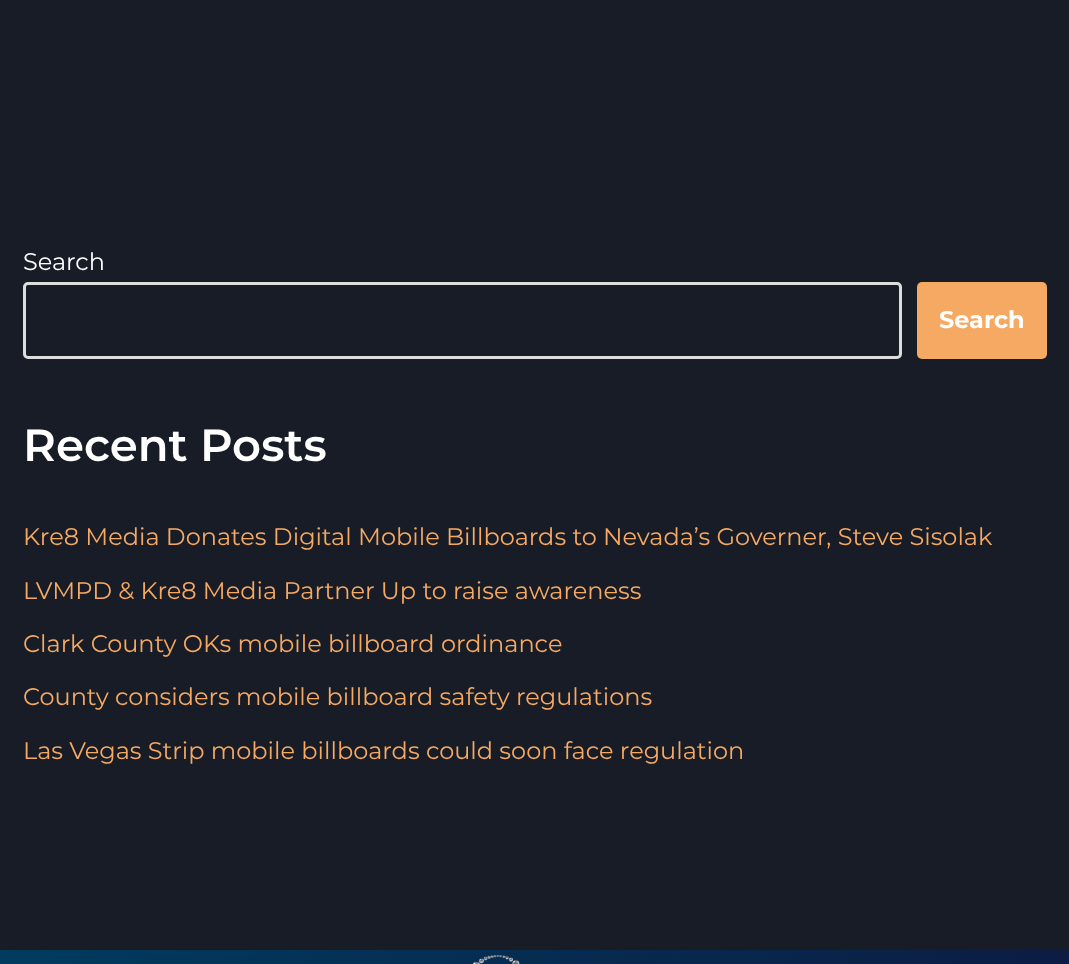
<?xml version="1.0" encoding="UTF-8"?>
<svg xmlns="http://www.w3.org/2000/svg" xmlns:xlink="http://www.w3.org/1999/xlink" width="1069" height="964">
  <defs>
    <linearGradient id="g1" gradientUnits="userSpaceOnUse" x1="27" y1="923" x2="1043" y2="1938"><stop offset="0" stop-color="#003c5e" /><stop offset="1" stop-color="#17002c" /></linearGradient>
  </defs>
  <rect width="100%" height="100%" fill="#171c26" />
  <rect x="24.5" y="283.5" width="876" height="74" rx="3.5" fill="none" stroke="#dddddd" stroke-width="3" />
  <rect x="917" y="282" width="130" height="77" rx="5" fill="#f6a963" />
  <rect y="950" width="1069" height="14" fill="url(#g1)" />
  <image x="472" y="955" width="48" height="9" xlink:href="image1.png" />
  <text x="23" y="270" style="font-family: Montserrat; font-size: 24px; fill: #ffffff">Search</text>
  <text x="939" y="328" style="font-family: Montserrat; font-size: 24px; font-weight: bold; fill: #ffffff">Search</text>
  <text x="23" y="461" style="font-family: Montserrat; font-size: 45px; font-weight: 600; fill: #ffffff">Recent Posts</text>
  <text x="23" y="545" style="font-family: Montserrat; font-size: 24px; fill: #f6a963">Kre8 Media Donates Digital Mobile Billboards to Nevada’s Governer, Steve Sisolak</text>
  <text x="23" y="599" style="font-family: Montserrat; font-size: 24px; fill: #f6a963">LVMPD &amp; Kre8 Media Partner Up to raise awareness</text>
  <text x="23" y="652" style="font-family: Montserrat; font-size: 24px; fill: #f6a963">Clark County OKs mobile billboard ordinance</text>
  <text x="23" y="705" style="font-family: Montserrat; font-size: 24px; fill: #f6a963">County considers mobile billboard safety regulations</text>
  <text x="23" y="759" style="font-family: Montserrat; font-size: 24px; fill: #f6a963">Las Vegas Strip mobile billboards could soon face regulation</text>
</svg>
